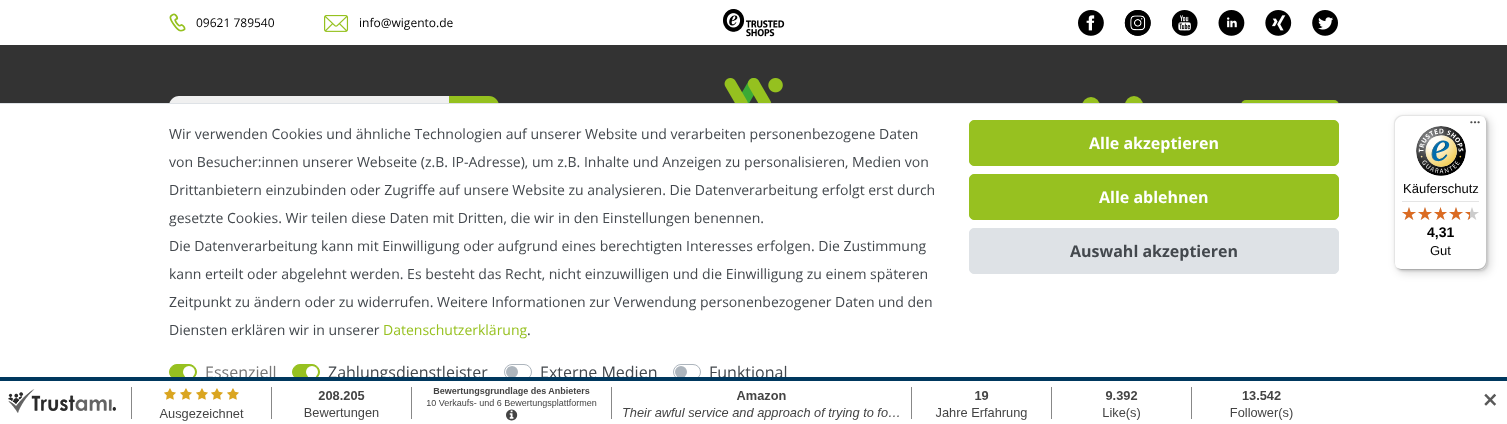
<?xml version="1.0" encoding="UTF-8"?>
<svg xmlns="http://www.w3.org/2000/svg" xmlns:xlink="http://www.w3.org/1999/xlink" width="1507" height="424">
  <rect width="100%" height="100%" fill="#ffffff" />
  <image x="169" y="13" width="17" height="19" xlink:href="image1.png" />
  <image x="324" y="15" width="25" height="17" xlink:href="image2.png" />
  <image x="723" y="9" width="62" height="28" xlink:href="image3.png" />
  <image x="1078" y="10" width="26" height="26" xlink:href="image4.png" />
  <image x="1124" y="10" width="27" height="26" xlink:href="image5.png" />
  <image x="1172" y="10" width="26" height="26" xlink:href="image6.png" />
  <image x="1218" y="10" width="27" height="26" xlink:href="image7.png" />
  <image x="1265" y="10" width="27" height="26" xlink:href="image8.png" />
  <image x="1312" y="10" width="26" height="26" xlink:href="image9.png" />
  <rect y="45" width="1507" height="58" fill="#333333" />
  <image x="724" y="78" width="59" height="25" xlink:href="image10.png" />
  <path d="M 179 96 h 270 v 44 h -270 c -5.5 0 -10 -4.5 -10 -10 v -24 c 0 -5.5 4.5 -10 10 -10 z" fill="#f0f0f0" />
  <path d="M 449 96 h 40 c 5.5 0 10 4.5 10 10 v 24 c 0 5.5 -4.5 10 -10 10 h -40 z" fill="#95c11f" />
  <circle cx="1091" cy="106" r="9" fill="#97c120" />
  <circle cx="1134" cy="105" r="9" fill="#97c120" />
  <rect x="1241" y="100" width="98" height="36" rx="5" fill="#95c11f" />
  <rect x="169" y="104" width="1170" height="36" fill="#ffffff" />
  <rect y="103" width="1507" height="1" fill="#dee2e6" />
  <rect x="169.5" y="364.5" width="27" height="15" rx="7.5" fill="#97c120" stroke="#97c120" />
  <circle cx="189" cy="372" r="6" fill="#ffffff" />
  <rect x="292.5" y="364.5" width="27" height="15" rx="7.5" fill="#97c120" stroke="#97c120" />
  <circle cx="312" cy="372" r="6" fill="#ffffff" />
  <rect x="504.5" y="364.5" width="27" height="15" rx="7.5" fill="none" stroke="#adb5bd" />
  <circle cx="512" cy="372" r="6" fill="#adb5bd" />
  <rect x="673.5" y="364.5" width="27" height="15" rx="7.5" fill="none" stroke="#adb5bd" />
  <circle cx="681" cy="372" r="6" fill="#adb5bd" />
  <rect x="969.5" y="120.5" width="369" height="45" rx="4.5" fill="#97c120" stroke="#97c120" />
  <rect x="969.5" y="174.5" width="369" height="45" rx="4.5" fill="#97c120" stroke="#97c120" />
  <rect x="969.5" y="228.5" width="369" height="45" rx="4.5" fill="#dee2e6" stroke="#dee2e6" />
  <rect x="1397" y="118" width="93" height="155" rx="8" fill="#000000" fill-opacity="0.15" filter="blur(4px)" />
  <rect x="1395" y="116" width="93" height="155" rx="8" fill="#000000" fill-opacity="0.15" filter="blur(1px)" />
  <rect x="1394" y="115" width="93" height="155" rx="8" fill="#ffffff" />
  <path d="M 1403 116 h 77 c 2 0 4 1 6 3 c -2 -2 -4 -4 -7 -4 h -77 c -4 0 -8 4 -8 8 v 139 c 0 3 2 5 4 7 c -2 -2 -3 -4 -3 -6 v -139 c 0 -4 4 -8 8 -8 z" fill="#e5e5e5" />
  <path d="M 1395 266 c 2 2 4 4 7 4 h 77 c 4 0 8 -4 8 -8 v -139 c 0 -3 -2 -5 -4 -7 c 2 2 3 4 3 6 v 139 c 0 4 -4 8 -8 8 h -77 c -2 0 -4 -1 -6 -3 z" fill="#cccccc" />
  <path d="M 1396 267 c 1 2 4 3 6 3 h 77 c 4 0 8 -4 8 -8 v -139 c 0 -2 -1 -5 -3 -6 c 1 1 2 3 2 5 v 139 c 0 5 -3 8 -8 8 h -77 c -2 0 -4 -1 -5 -2 z" fill="#323232" fill-opacity="0.2" />
  <path d="M 1478 270 h 1 c 4 0 8 -4 8 -8 v -139 c 0 -2 -1 -5 -3 -6 c 1 1 2 3 2 5 v 140 c 0 4 -3 8 -8 8 z" fill="#ffffff" fill-opacity="0.3" />
  <image x="1470" y="121" width="10" height="3" xlink:href="image11.png" />
  <image x="1416" y="126" width="50" height="50" xlink:href="image12.png" />
  <rect x="1402" y="201" width="77" height="1" fill="#e5e5e5" />
  <image x="1402" y="207" width="14" height="13" xlink:href="image13.png" />
  <image x="1418" y="207" width="14" height="13" xlink:href="image13.png" />
  <image x="1434" y="207" width="13" height="13" xlink:href="image14.png" />
  <image x="1449" y="207" width="14" height="13" xlink:href="image13.png" />
  <image x="1465" y="207" width="14" height="13" xlink:href="image13.png" />
  <image x="1402" y="207" width="14" height="13" xlink:href="image15.png" />
  <image x="1418" y="207" width="14" height="13" xlink:href="image15.png" />
  <image x="1434" y="207" width="13" height="13" xlink:href="image16.png" />
  <image x="1449" y="207" width="14" height="13" xlink:href="image15.png" />
  <image x="1465" y="212" width="5" height="8" xlink:href="image17.png" />
  <text x="196" y="27" style="font-family: Open Sans; font-size: 12px; fill: #000000">09621 789540</text>
  <text x="359" y="27" style="font-family: Open Sans; font-size: 12px; fill: #000000">info@wigento.de</text>
  <text x="169" y="139" style="font-family: Open Sans; font-size: 14px; fill: #43484d">Wir verwenden Cookies und ähnliche Technologien auf unserer Website und verarbeiten personenbezogene Daten</text>
  <text x="169" y="167" style="font-family: Open Sans; font-size: 14px; fill: #43484d">von Besucher:innen unserer Webseite (z.B. IP-Adresse), um z.B. Inhalte und Anzeigen zu personalisieren, Medien von</text>
  <text x="169" y="195" style="font-family: Open Sans; font-size: 14px; fill: #43484d">Drittanbietern einzubinden oder Zugriffe auf unsere Website zu analysieren. Die Datenverarbeitung erfolgt erst durch</text>
  <text x="169" y="223" style="font-family: Open Sans; font-size: 14px; fill: #43484d">gesetzte Cookies. Wir teilen diese Daten mit Dritten, die wir in den Einstellungen benennen.</text>
  <text x="169" y="251" style="font-family: Open Sans; font-size: 14px; fill: #43484d">Die Datenverarbeitung kann mit Einwilligung oder aufgrund eines berechtigten Interesses erfolgen. Die Zustimmung</text>
  <text x="169" y="279" style="font-family: Open Sans; font-size: 14px; fill: #43484d">kann erteilt oder abgelehnt werden. Es besteht das Recht, nicht einzuwilligen und die Einwilligung zu einem späteren</text>
  <text x="169" y="307" style="font-family: Open Sans; font-size: 14px; fill: #43484d">Zeitpunkt zu ändern oder zu widerrufen. Weitere Informationen zur Verwendung personenbezogener Daten und den</text>
  <text x="169" y="335" style="font-family: Open Sans; font-size: 14px; fill: #43484d">Diensten erklären wir in unserer</text>
  <text x="383" y="335" style="font-family: Open Sans; font-size: 14px; fill: #97c120">Datenschutzerklärung</text>
  <text x="527" y="335" style="font-family: Open Sans; font-size: 14px; fill: #43484d">.</text>
  <text x="205" y="378" style="font-family: Open Sans; font-size: 16px; fill: #767676">Essenziell</text>
  <text x="328" y="378" style="font-family: Open Sans; font-size: 16px; fill: #43484d">Zahlungsdienstleister</text>
  <text x="540" y="378" style="font-family: Open Sans; font-size: 16px; fill: #43484d">Externe Medien</text>
  <text x="709" y="378" style="font-family: Open Sans; font-size: 16px; fill: #43484d">Funktional</text>
  <text x="1089" y="149" style="font-family: Open Sans; font-size: 16px; font-weight: bold; fill: #ffffff">Alle akzeptieren</text>
  <text x="1099" y="203" style="font-family: Open Sans; font-size: 16px; font-weight: bold; fill: #ffffff">Alle ablehnen</text>
  <text x="1070" y="257" style="font-family: Open Sans; font-size: 16px; font-weight: bold; fill: #43484d">Auswahl akzeptieren</text>
  <text x="1403" y="193" style="font-family: Liberation Sans; font-size: 13px; fill: #000000">Käuferschutz</text>
  <text x="1427" y="237" style="font-family: Liberation Sans; font-size: 14px; font-weight: bold; fill: #000000">4,31</text>
  <text x="1430" y="255" style="font-family: Liberation Sans; font-size: 13px; fill: #000000">Gut</text>
  <image x="0" y="377" width="1507" height="44" xlink:href="image18.png" />
  <text x="1482" y="407" style="font-family: DejaVu Sans; font-size: 19px; font-weight: bold; fill: #595959">✕</text>
</svg>
